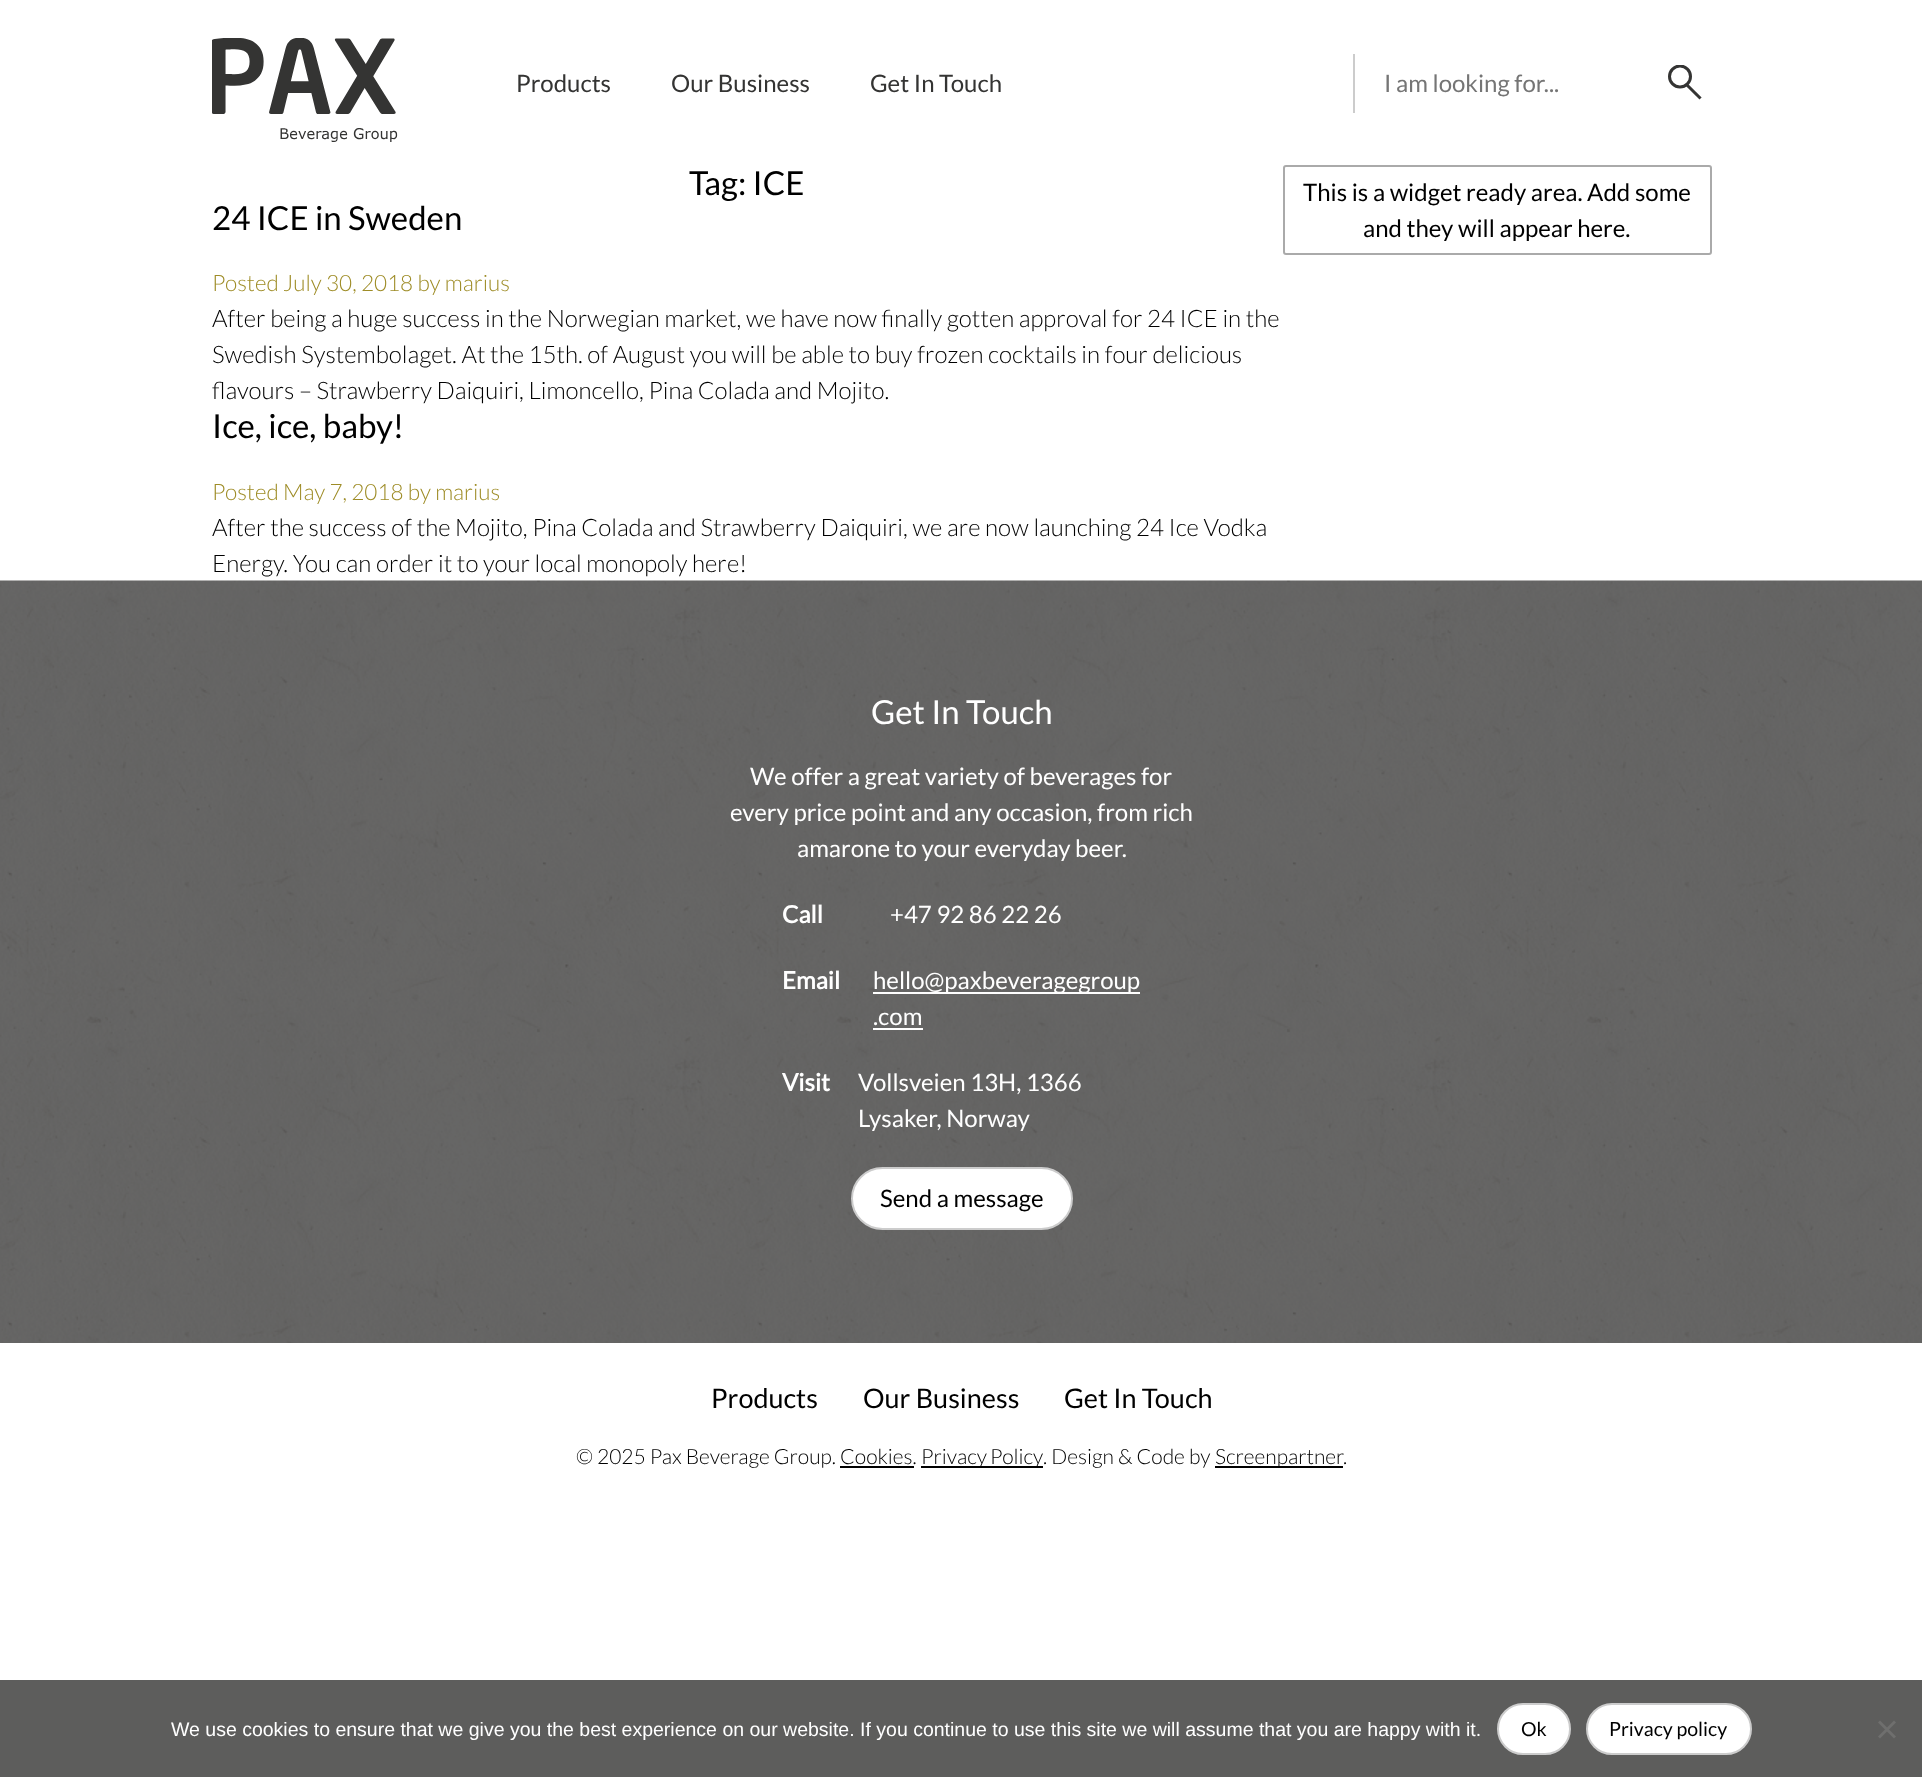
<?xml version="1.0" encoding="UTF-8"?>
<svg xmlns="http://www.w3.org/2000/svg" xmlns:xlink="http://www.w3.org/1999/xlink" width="1922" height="1777">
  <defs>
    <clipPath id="clip1"><rect x="1668" y="65" width="35" height="36" /></clipPath>
  </defs>
  <rect width="100%" height="100%" fill="#ffffff" />
  <image x="212" y="38" width="186" height="104" xlink:href="image1.png" />
  <rect x="1353" y="54" width="2" height="59" fill="#cccccc" />
  <g clip-path="url(#clip1)">
    <circle cx="1680" cy="76.5" r="10.5" fill="none" stroke="#343433" stroke-width="3" />
  </g>
  <path d="M 1687 85 l 12.5 12.5" fill="none" stroke="#343433" stroke-width="3" stroke-linecap="square" />
  <rect x="1284" y="166" width="427" height="88" rx="2" fill="none" stroke="#aaaaaa" stroke-width="2" />
  <image x="0" y="580" width="1922" height="763" xlink:href="image2.png" />
  <rect x="873" y="992" width="267" height="2" fill="#ffffff" />
  <rect x="873" y="1028" width="50" height="2" fill="#ffffff" />
  <rect x="852" y="1168" width="220" height="61" rx="30.5" fill="#ffffff" stroke="#cccccc" stroke-width="2" />
  <rect x="921" y="1466" width="122" height="2" fill="#000000" />
  <rect x="1215" y="1466" width="128" height="2" fill="#000000" />
  <rect x="840" y="1466" width="74" height="2" fill="#000000" />
  <rect y="1680" width="1922" height="97" fill="#5d5d5c" />
  <rect x="1498" y="1704" width="72" height="50" rx="25" fill="#ffffff" stroke="#cccccc" stroke-width="2" />
  <rect x="1587" y="1704" width="164" height="50" rx="25" fill="#ffffff" stroke="#cccccc" stroke-width="2" />
  <path d="M 1894 1720.5 l 2 2 l -16 16 l -2 -2 z" fill="#6f6f6e" />
  <path d="M 1878 1722.5 l 2 -2 l 16 16 l -2 2 z" fill="#6f6f6e" />
  <text x="516" y="92" style="font-family: Lato; font-size: 24px; fill: #343433">Products</text>
  <text x="671" y="92" style="font-family: Lato; font-size: 24px; fill: #343433">Our Business</text>
  <text x="870" y="92" style="font-family: Lato; font-size: 24px; fill: #343433">Get In Touch</text>
  <text x="1384" y="92" style="font-family: Lato; font-size: 24px; fill: #757575">I am looking for...</text>
  <text x="689" y="195" style="font-family: Lato; font-size: 33px; fill: #000000">Tag: ICE</text>
  <text x="212" y="230" style="font-family: Lato; font-size: 33px; fill: #000000">24 ICE in Sweden</text>
  <text x="212" y="291" style="font-family: Lato; font-size: 22.5px; font-weight: 300; fill: #9e8c26">Posted July 30, 2018 by marius</text>
  <text x="212" y="327" style="font-family: Lato; font-size: 24px; font-weight: 300; fill: #000000">After being a huge success in the Norwegian market, we have now finally gotten approval for 24 ICE in the</text>
  <text x="212" y="363" style="font-family: Lato; font-size: 24px; font-weight: 300; fill: #000000">Swedish Systembolaget. At the 15th. of August you will be able to buy frozen cocktails in four delicious</text>
  <text x="212" y="399" style="font-family: Lato; font-size: 24px; font-weight: 300; fill: #000000">flavours – Strawberry Daiquiri, Limoncello, Pina Colada and Mojito.</text>
  <text x="212" y="438" style="font-family: Lato; font-size: 33px; fill: #000000">Ice, ice, baby!</text>
  <text x="212" y="500" style="font-family: Lato; font-size: 22.5px; font-weight: 300; fill: #9e8c26">Posted May 7, 2018 by marius</text>
  <text x="212" y="536" style="font-family: Lato; font-size: 24px; font-weight: 300; fill: #000000">After the success of the Mojito, Pina Colada and Strawberry Daiquiri, we are now launching 24 Ice Vodka</text>
  <text x="212" y="572" style="font-family: Lato; font-size: 24px; font-weight: 300; fill: #000000">Energy. You can order it to your local monopoly here!</text>
  <text x="1303" y="201" style="font-family: Lato; font-size: 24px; fill: #000000">This is a widget ready area. Add some</text>
  <text x="1363" y="237" style="font-family: Lato; font-size: 24px; fill: #000000">and they will appear here.</text>
  <text x="871" y="724" style="font-family: Lato; font-size: 33px; fill: #ffffff">Get In Touch</text>
  <text x="750" y="785" style="font-family: Lato; font-size: 24px; fill: #ffffff">We offer a great variety of beverages for</text>
  <text x="730" y="821" style="font-family: Lato; font-size: 24px; fill: #ffffff">every price point and any occasion, from rich</text>
  <text x="797" y="857" style="font-family: Lato; font-size: 24px; fill: #ffffff">amarone to your everyday beer.</text>
  <text x="782" y="923" style="font-family: Lato; font-size: 24px; font-weight: bold; fill: #ffffff">Call</text>
  <text x="890" y="923" style="font-family: Lato; font-size: 24px; fill: #ffffff">+47 92 86 22 26</text>
  <text x="782" y="989" style="font-family: Lato; font-size: 24px; font-weight: bold; fill: #ffffff">Email</text>
  <text x="873" y="989" style="font-family: Lato; font-size: 24px; fill: #ffffff">hello@paxbeveragegroup</text>
  <text x="873" y="1025" style="font-family: Lato; font-size: 24px; fill: #ffffff">.com</text>
  <text x="782" y="1091" style="font-family: Lato; font-size: 24px; font-weight: bold; fill: #ffffff">Visit</text>
  <text x="858" y="1091" style="font-family: Lato; font-size: 24px; fill: #ffffff">Vollsveien 13H, 1366</text>
  <text x="858" y="1127" style="font-family: Lato; font-size: 24px; fill: #ffffff">Lysaker, Norway</text>
  <text x="880" y="1207" style="font-family: Lato; font-size: 24px; fill: #000000">Send a message</text>
  <text x="711" y="1408" style="font-family: Lato; font-size: 27px; fill: #000000">Products</text>
  <text x="863" y="1408" style="font-family: Lato; font-size: 27px; fill: #000000">Our Business</text>
  <text x="1064" y="1408" style="font-family: Lato; font-size: 27px; fill: #000000">Get In Touch</text>
  <text x="576" y="1464" style="font-family: Lato; font-size: 21px; font-weight: 300; fill: #000000">© 2025 Pax Beverage Group. Cookies.</text>
  <text x="921" y="1464" word-spacing="-1" style="font-family: Lato; font-size: 21px; font-weight: 300; fill: #000000">Privacy Policy</text>
  <text x="1043" y="1464" style="font-family: Lato; font-size: 21px; font-weight: 300; fill: #000000">. Design &amp; Code by</text>
  <text x="1215" y="1464" style="font-family: Lato; font-size: 21px; font-weight: 300; fill: #000000">Screenpartner</text>
  <text x="1343" y="1464" style="font-family: Lato; font-size: 21px; font-weight: 300; fill: #000000">.</text>
  <text x="171" y="1736" style="font-family: Liberation Sans; font-size: 19.5px; fill: #ffffff">We use cookies to ensure that we give you the best experience on our website. If you continue to use this site we will assume that you are happy with it.</text>
  <text x="1521" y="1736" style="font-family: Lato; font-size: 19.5px; fill: #000000">Ok</text>
  <text x="1609" y="1736" style="font-family: Lato; font-size: 19.5px; fill: #000000">Privacy policy</text>
</svg>
